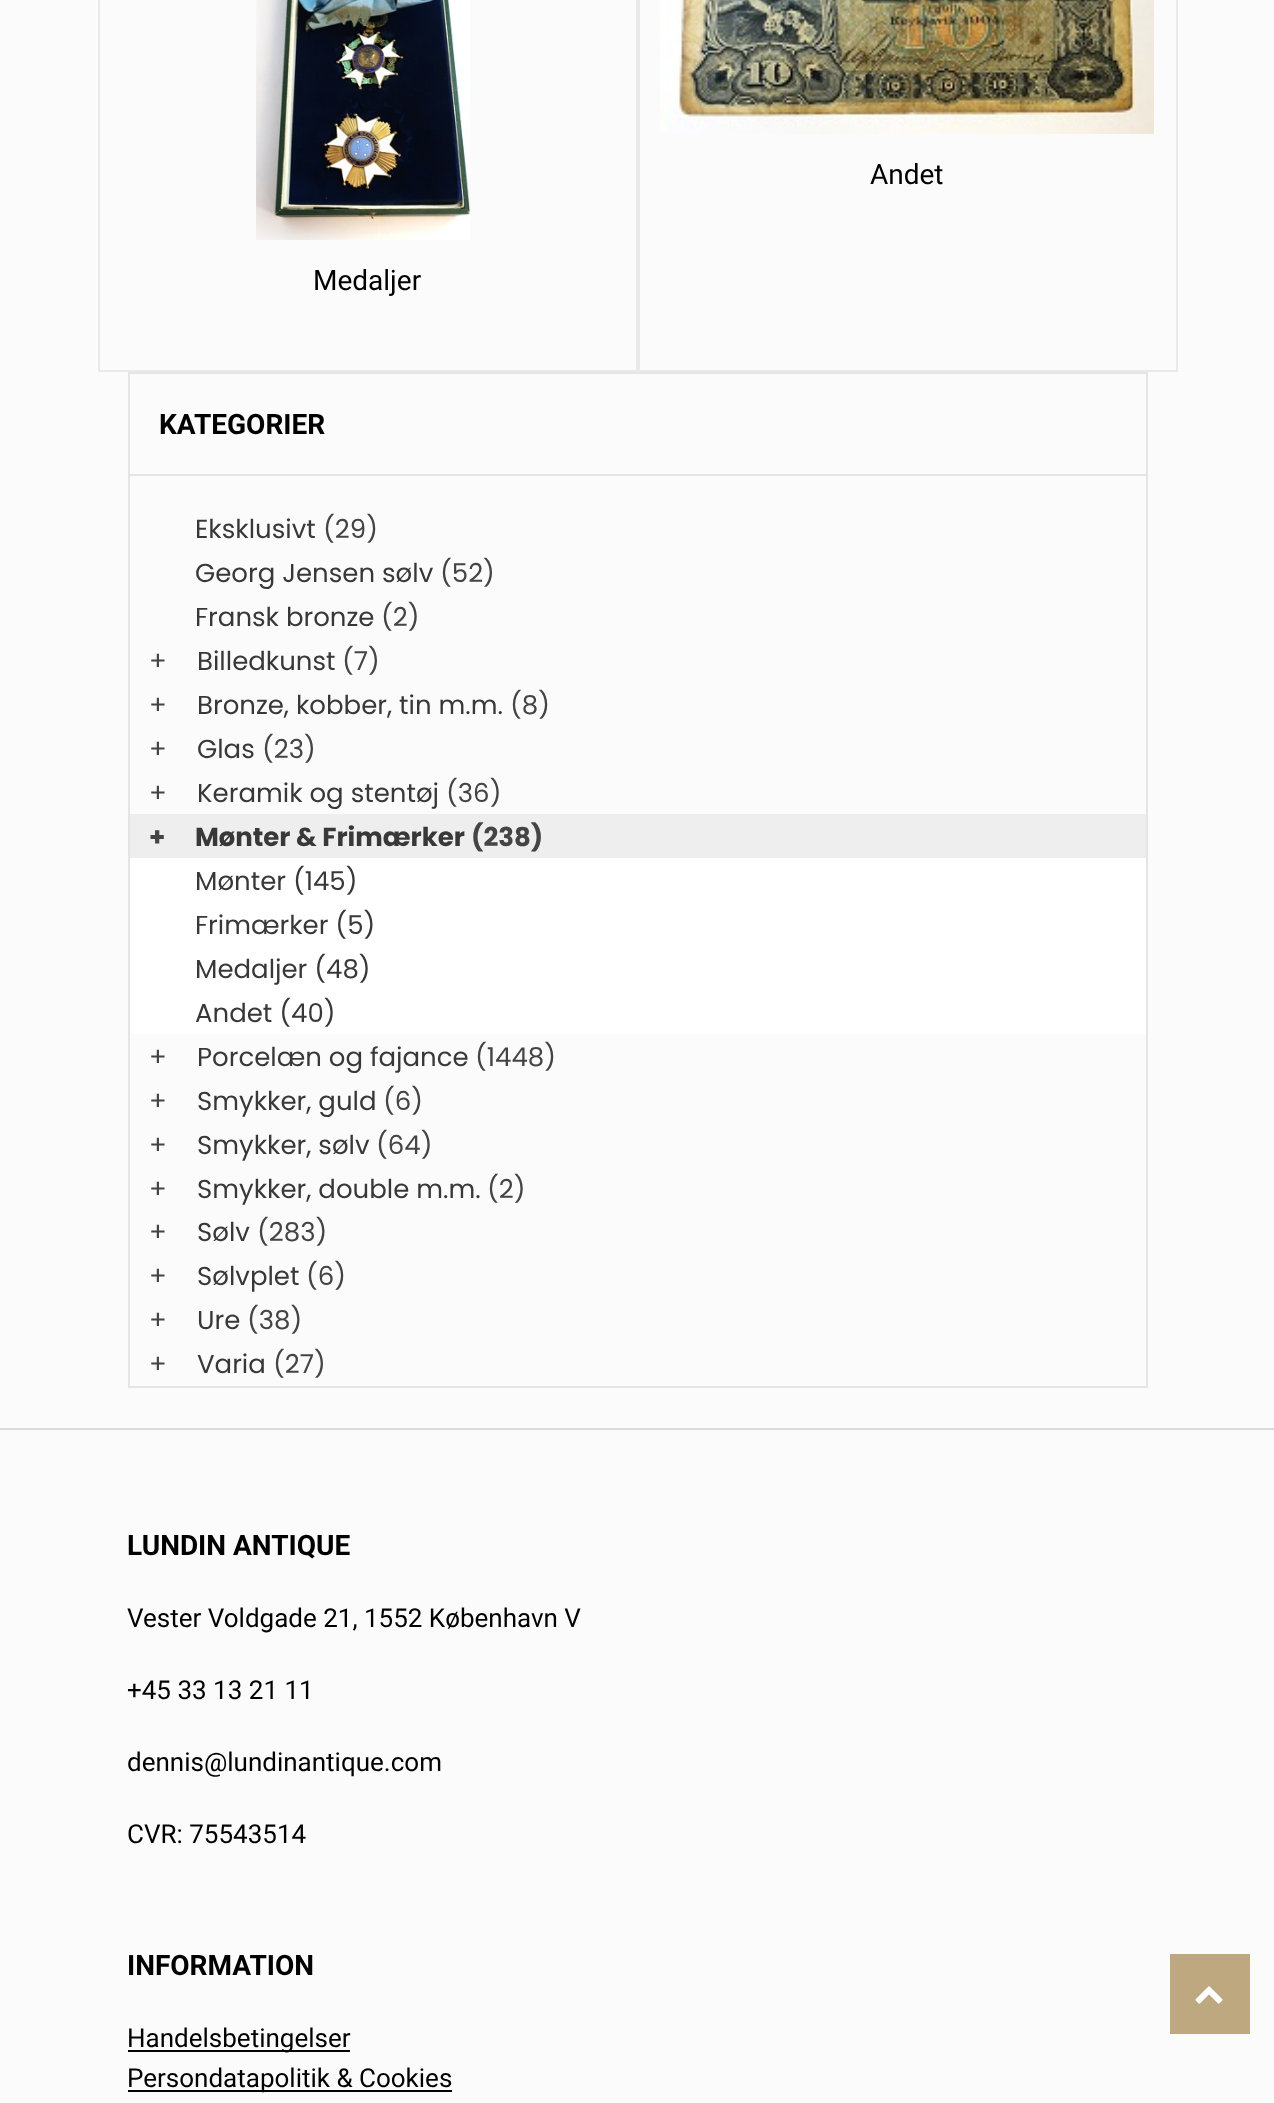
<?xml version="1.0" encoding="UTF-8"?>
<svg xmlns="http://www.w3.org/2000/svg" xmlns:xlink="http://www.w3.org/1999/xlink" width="1274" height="2103">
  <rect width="100%" height="100%" fill="#fbfbfb" />
  <rect x="639" y="-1" width="538" height="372" fill="none" stroke="#e9e9e9" stroke-width="2" />
  <image x="660" y="0" width="494" height="134" xlink:href="image1.png" />
  <rect x="99" y="-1" width="538" height="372" fill="none" stroke="#e9e9e9" stroke-width="2" />
  <image x="256" y="0" width="214" height="240" xlink:href="image2.png" />
  <rect x="129" y="373" width="1018" height="1014" fill="none" stroke="#e5e5e5" stroke-width="2" />
  <rect x="130" y="474" width="1016" height="2" fill="#e5e5e5" />
  <rect x="130" y="814" width="1016" height="44" fill="#eeeeee" />
  <rect x="130" y="858" width="1016" height="176" fill="#ffffff" />
  <rect y="1428" width="1274" height="2" fill="#d9dadf" />
  <rect x="128" y="2050" width="222" height="2" fill="#000000" />
  <rect x="128" y="2090" width="324" height="2" fill="#000000" />
  <rect x="1170" y="1954" width="80" height="80" fill="#bda87f" />
  <image x="1195" y="1986" width="28" height="18" xlink:href="image3.png" />
  <text x="870" y="184" style="font-family: Roboto; font-size: 28px; fill: #000000">Andet</text>
  <text x="313" y="290" style="font-family: Roboto; font-size: 28px; fill: #000000">Medaljer</text>
  <text x="159" y="434" style="font-family: Roboto; font-size: 28px; font-weight: bold; fill: #000000">KATEGORIER</text>
  <text x="195" y="538" style="font-family: Poppins; font-size: 26px; fill: #383838">Eksklusivt</text>
  <text x="323" y="538" style="font-family: Poppins; font-size: 26px; fill: #444444">(29)</text>
  <text x="195" y="582" style="font-family: Poppins; font-size: 26px; fill: #383838">Georg Jensen sølv</text>
  <text x="440" y="582" style="font-family: Poppins; font-size: 26px; fill: #444444">(52)</text>
  <text x="195" y="626" style="font-family: Poppins; font-size: 26px; fill: #383838">Fransk bronze</text>
  <text x="381" y="626" style="font-family: Poppins; font-size: 26px; fill: #444444">(2)</text>
  <text x="149" y="670" style="font-family: Poppins; font-size: 26px; fill: #444444">+</text>
  <text x="197" y="670" style="font-family: Poppins; font-size: 26px; fill: #383838">Billedkunst</text>
  <text x="342" y="670" style="font-family: Poppins; font-size: 26px; fill: #444444">(7)</text>
  <text x="149" y="714" style="font-family: Poppins; font-size: 26px; fill: #444444">+</text>
  <text x="197" y="714" style="font-family: Poppins; font-size: 26px; fill: #383838">Bronze, kobber, tin m.m.</text>
  <text x="510" y="714" style="font-family: Poppins; font-size: 26px; fill: #444444">(8)</text>
  <text x="149" y="758" style="font-family: Poppins; font-size: 26px; fill: #444444">+</text>
  <text x="197" y="758" style="font-family: Poppins; font-size: 26px; fill: #383838">Glas</text>
  <text x="262" y="758" style="font-family: Poppins; font-size: 26px; fill: #444444">(23)</text>
  <text x="149" y="802" style="font-family: Poppins; font-size: 26px; fill: #444444">+</text>
  <text x="197" y="802" style="font-family: Poppins; font-size: 26px; fill: #383838">Keramik og stentøj</text>
  <text x="446" y="802" style="font-family: Poppins; font-size: 26px; fill: #444444">(36)</text>
  <text x="149" y="846" style="font-family: Poppins; font-size: 26px; font-weight: bold; fill: #444444">+</text>
  <text x="195" y="846" style="font-family: Poppins; font-size: 26px; font-weight: bold; fill: #383838">Mønter &amp; Frimærker</text>
  <text x="471" y="846" style="font-family: Poppins; font-size: 26px; font-weight: bold; fill: #444444">(238)</text>
  <text x="195" y="890" style="font-family: Poppins; font-size: 26px; fill: #383838">Mønter (145)</text>
  <text x="195" y="934" style="font-family: Poppins; font-size: 26px; fill: #383838">Frimærker (5)</text>
  <text x="195" y="978" style="font-family: Poppins; font-size: 26px; fill: #383838">Medaljer (48)</text>
  <text x="195" y="1022" style="font-family: Poppins; font-size: 26px; fill: #383838">Andet (40)</text>
  <text x="149" y="1066" style="font-family: Poppins; font-size: 26px; fill: #444444">+</text>
  <text x="197" y="1066" style="font-family: Poppins; font-size: 26px; fill: #383838">Porcelæn og fajance</text>
  <text x="475" y="1066" style="font-family: Poppins; font-size: 26px; fill: #444444">(1448)</text>
  <text x="149" y="1110" style="font-family: Poppins; font-size: 26px; fill: #444444">+</text>
  <text x="197" y="1110" style="font-family: Poppins; font-size: 26px; fill: #383838">Smykker, guld</text>
  <text x="383" y="1110" style="font-family: Poppins; font-size: 26px; fill: #444444">(6)</text>
  <text x="149" y="1154" style="font-family: Poppins; font-size: 26px; fill: #444444">+</text>
  <text x="197" y="1154" style="font-family: Poppins; font-size: 26px; fill: #383838">Smykker, sølv</text>
  <text x="376" y="1154" style="font-family: Poppins; font-size: 26px; fill: #444444">(64)</text>
  <text x="149" y="1198" style="font-family: Poppins; font-size: 26px; fill: #444444">+</text>
  <text x="197" y="1198" style="font-family: Poppins; font-size: 26px; fill: #383838">Smykker, double m.m.</text>
  <text x="487" y="1198" style="font-family: Poppins; font-size: 26px; fill: #444444">(2)</text>
  <text x="149" y="1241" style="font-family: Poppins; font-size: 26px; fill: #444444">+</text>
  <text x="197" y="1241" style="font-family: Poppins; font-size: 26px; fill: #383838">Sølv</text>
  <text x="257" y="1241" style="font-family: Poppins; font-size: 26px; fill: #444444">(283)</text>
  <text x="149" y="1285" style="font-family: Poppins; font-size: 26px; fill: #444444">+</text>
  <text x="197" y="1285" style="font-family: Poppins; font-size: 26px; fill: #383838">Sølvplet</text>
  <text x="306" y="1285" style="font-family: Poppins; font-size: 26px; fill: #444444">(6)</text>
  <text x="149" y="1329" style="font-family: Poppins; font-size: 26px; fill: #444444">+</text>
  <text x="197" y="1329" style="font-family: Poppins; font-size: 26px; fill: #383838">Ure</text>
  <text x="247" y="1329" style="font-family: Poppins; font-size: 26px; fill: #444444">(38)</text>
  <text x="149" y="1373" style="font-family: Poppins; font-size: 26px; fill: #444444">+</text>
  <text x="197" y="1373" style="font-family: Poppins; font-size: 26px; fill: #383838">Varia</text>
  <text x="273" y="1373" style="font-family: Poppins; font-size: 26px; fill: #444444">(27)</text>
  <text x="127" y="1555" style="font-family: Roboto; font-size: 28px; font-weight: bold; fill: #000000">LUNDIN ANTIQUE</text>
  <text x="127" y="1627" style="font-family: Roboto; font-size: 26px; fill: #000000">Vester Voldgade 21, 1552 København V</text>
  <text x="127" y="1699" style="font-family: Roboto; font-size: 26px; fill: #000000">+45 33 13 21 11</text>
  <text x="127" y="1771" style="font-family: Roboto; font-size: 26px; fill: #000000">dennis@lundinantique.com</text>
  <text x="127" y="1843" style="font-family: Roboto; font-size: 26px; fill: #000000">CVR: 75543514</text>
  <text x="127" y="1975" style="font-family: Roboto; font-size: 28px; font-weight: bold; fill: #000000">INFORMATION</text>
  <text x="127" y="2047" style="font-family: Roboto; font-size: 26px; fill: #000000">Handelsbetingelser</text>
  <text x="127" y="2087" style="font-family: Roboto; font-size: 26px; fill: #000000">Persondatapolitik &amp; Cookies</text>
</svg>
